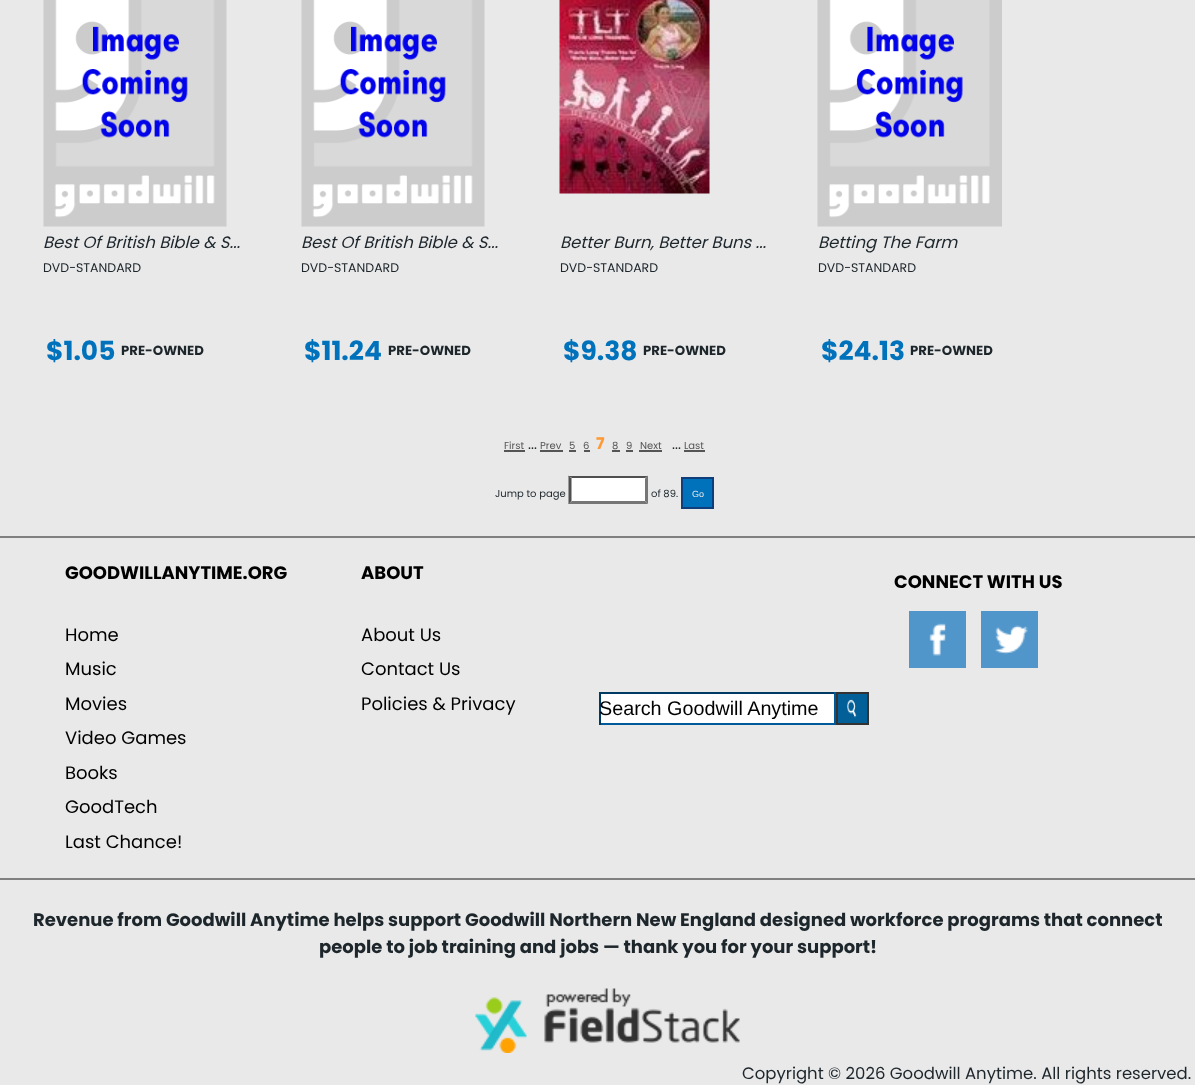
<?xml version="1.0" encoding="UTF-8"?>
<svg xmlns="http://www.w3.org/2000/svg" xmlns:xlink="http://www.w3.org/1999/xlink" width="1195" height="1085">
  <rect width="100%" height="100%" fill="#e9e9ea" />
  <image x="43" y="0" width="184" height="227" xlink:href="image1.png" />
  <image x="301" y="0" width="184" height="227" xlink:href="image1.png" />
  <image x="559" y="0" width="151" height="194" xlink:href="image2.png" />
  <image x="817" y="0" width="185" height="227" xlink:href="image3.png" />
  <rect x="504" y="450" width="21" height="2" fill="#555555" />
  <rect x="540" y="450" width="23" height="2" fill="#555555" />
  <rect x="569" y="450" width="7" height="2" fill="#555555" />
  <rect x="584" y="450" width="6" height="2" fill="#555555" />
  <rect x="612" y="450" width="8" height="2" fill="#555555" />
  <rect x="626" y="450" width="7" height="2" fill="#555555" />
  <rect x="639" y="450" width="23" height="2" fill="#555555" />
  <rect x="684" y="450" width="21" height="2" fill="#555555" />
  <rect x="569" y="476" width="79" height="28" fill="#ffffff" />
  <path d="M 568 476 h 80 l -3 2 h -73 z" fill="#4f4f4f" />
  <path d="M 648 475.5 v 28.5 l -3 -3 v -22.5 z" fill="#767676" />
  <path d="M 648 504 h -80 l 4 -3 h 73 z" fill="#767676" />
  <path d="M 568.5 504 v -28.5 l 3 3 v 22.5 z" fill="#4f4f4f" />
  <rect x="682" y="478" width="31" height="30" fill="#0072bc" stroke="#103e7b" stroke-width="2" />
  <rect y="536" width="1195" height="2" fill="#808080" />
  <rect y="878" width="1195" height="2" fill="#808080" />
  <rect x="909" y="611" width="57" height="57" fill="#5196cb" />
  <image x="929" y="623" width="17" height="33" xlink:href="image4.png" />
  <rect x="981" y="611" width="57" height="57" fill="#5196cb" />
  <image x="994" y="625" width="34" height="30" xlink:href="image5.png" />
  <rect x="601" y="694" width="233" height="29" fill="#ffffff" />
  <rect x="599" y="692" width="237" height="2" fill="#003b66" />
  <rect x="834" y="692" width="2" height="33" fill="#005999" />
  <rect x="599" y="723" width="237" height="2" fill="#005999" />
  <rect x="599" y="692" width="2" height="33" fill="#003b66" />
  <rect x="837" y="693" width="31" height="31" fill="#025f97" stroke="#333333" stroke-width="2" />
  <image x="847" y="699" width="10" height="19" xlink:href="image6.png" />
  <image x="475" y="988" width="265" height="65" xlink:href="image7.png" />
  <text x="43" y="248" style="font-family: Poppins; font-size: 16.5px; font-style: italic; fill: #1d262b">Best Of British Bible &amp; S...</text>
  <text x="43" y="272" style="font-family: Poppins; font-size: 12.5px; fill: #1d262b">DVD-STANDARD</text>
  <text x="46" y="360" style="font-family: Poppins; font-size: 26.5px; font-weight: bold; fill: #0072bc">$1.05</text>
  <text x="121" y="355" style="font-family: Poppins; font-size: 13.25px; font-weight: bold; fill: #1d262b">PRE-OWNED</text>
  <text x="301" y="248" style="font-family: Poppins; font-size: 16.5px; font-style: italic; fill: #1d262b">Best Of British Bible &amp; S...</text>
  <text x="301" y="272" style="font-family: Poppins; font-size: 12.5px; fill: #1d262b">DVD-STANDARD</text>
  <text x="304" y="360" style="font-family: Poppins; font-size: 26.5px; font-weight: bold; fill: #0072bc">$11.24</text>
  <text x="388" y="355" style="font-family: Poppins; font-size: 13.25px; font-weight: bold; fill: #1d262b">PRE-OWNED</text>
  <text x="560" y="248" style="font-family: Poppins; font-size: 16.5px; font-style: italic; fill: #1d262b">Better Burn, Better Buns ...</text>
  <text x="560" y="272" style="font-family: Poppins; font-size: 12.5px; fill: #1d262b">DVD-STANDARD</text>
  <text x="563" y="360" style="font-family: Poppins; font-size: 26.5px; font-weight: bold; fill: #0072bc">$9.38</text>
  <text x="643" y="355" style="font-family: Poppins; font-size: 13.25px; font-weight: bold; fill: #1d262b">PRE-OWNED</text>
  <text x="818" y="248" style="font-family: Poppins; font-size: 16.5px; font-style: italic; fill: #1d262b">Betting The Farm</text>
  <text x="818" y="272" style="font-family: Poppins; font-size: 12.5px; fill: #1d262b">DVD-STANDARD</text>
  <text x="821" y="360" style="font-family: Poppins; font-size: 26.5px; font-weight: bold; fill: #0072bc">$24.13</text>
  <text x="910" y="355" style="font-family: Poppins; font-size: 13.25px; font-weight: bold; fill: #1d262b">PRE-OWNED</text>
  <text x="504" y="449" style="font-family: Poppins; font-size: 10px; fill: #555555">First</text>
  <text x="528" y="449" style="font-family: Poppins; font-size: 14px; fill: #1d262b">...</text>
  <text x="540" y="449" style="font-family: Poppins; font-size: 10px; fill: #555555">Prev</text>
  <text x="569" y="449" style="font-family: Poppins; font-size: 10px; fill: #555555">5</text>
  <text x="583" y="449" style="font-family: Poppins; font-size: 10px; fill: #555555">6</text>
  <text x="596" y="449" style="font-family: Poppins; font-size: 16px; font-weight: bold; fill: #ff9933">7</text>
  <text x="612" y="449" style="font-family: Poppins; font-size: 10px; fill: #555555">8</text>
  <text x="626" y="449" style="font-family: Poppins; font-size: 10px; fill: #555555">9</text>
  <text x="640" y="449" style="font-family: Poppins; font-size: 10px; fill: #555555">Next</text>
  <text x="672" y="449" style="font-family: Poppins; font-size: 14px; fill: #1d262b">...</text>
  <text x="684" y="449" style="font-family: Poppins; font-size: 10px; fill: #555555">Last</text>
  <text x="495" y="497" style="font-family: Poppins; font-size: 10px; fill: #1d262b">Jump to page</text>
  <text x="651" y="497" style="font-family: Poppins; font-size: 10px; fill: #1d262b">of 89.</text>
  <text x="692" y="497" style="font-family: Liberation Sans; font-size: 9px; fill: #e9e9ea">Go</text>
  <text x="65" y="579" style="font-family: Poppins; font-size: 18px; font-weight: bold; fill: #000000">GOODWILLANYTIME.ORG</text>
  <text x="65" y="641" style="font-family: Poppins; font-size: 18px; fill: #000000">Home</text>
  <text x="65" y="675" style="font-family: Poppins; font-size: 18px; fill: #000000">Music</text>
  <text x="65" y="710" style="font-family: Poppins; font-size: 18px; fill: #000000">Movies</text>
  <text x="65" y="744" style="font-family: Poppins; font-size: 18px; fill: #000000">Video Games</text>
  <text x="65" y="779" style="font-family: Poppins; font-size: 18px; fill: #000000">Books</text>
  <text x="65" y="813" style="font-family: Poppins; font-size: 18px; fill: #000000">GoodTech</text>
  <text x="65" y="848" style="font-family: Poppins; font-size: 18px; fill: #000000">Last Chance!</text>
  <text x="361" y="579" style="font-family: Poppins; font-size: 18px; font-weight: bold; fill: #000000">ABOUT</text>
  <text x="361" y="641" style="font-family: Poppins; font-size: 18px; fill: #000000">About Us</text>
  <text x="361" y="675" style="font-family: Poppins; font-size: 18px; fill: #000000">Contact Us</text>
  <text x="361" y="710" style="font-family: Poppins; font-size: 18px; fill: #000000">Policies &amp; Privacy</text>
  <text x="894" y="588" style="font-family: Poppins; font-size: 18px; font-weight: bold; fill: #000000">CONNECT WITH US</text>
  <text x="599" y="715" style="font-family: Liberation Sans; font-size: 19.75px; fill: #000000">Search Goodwill Anytime</text>
  <text x="33" y="926" style="font-family: Poppins; font-size: 18px; font-weight: bold; fill: #1d262b">Revenue from Goodwill Anytime helps support Goodwill Northern New England designed workforce programs that connect</text>
  <text x="319" y="953" style="font-family: Poppins; font-size: 18px; font-weight: bold; fill: #1d262b">people to job training and jobs — thank you for your support!</text>
  <text x="742" y="1079" style="font-family: Poppins; font-size: 16.5px; fill: #1d262b">Copyright © 2026 Goodwill Anytime. All rights reserved.</text>
</svg>
